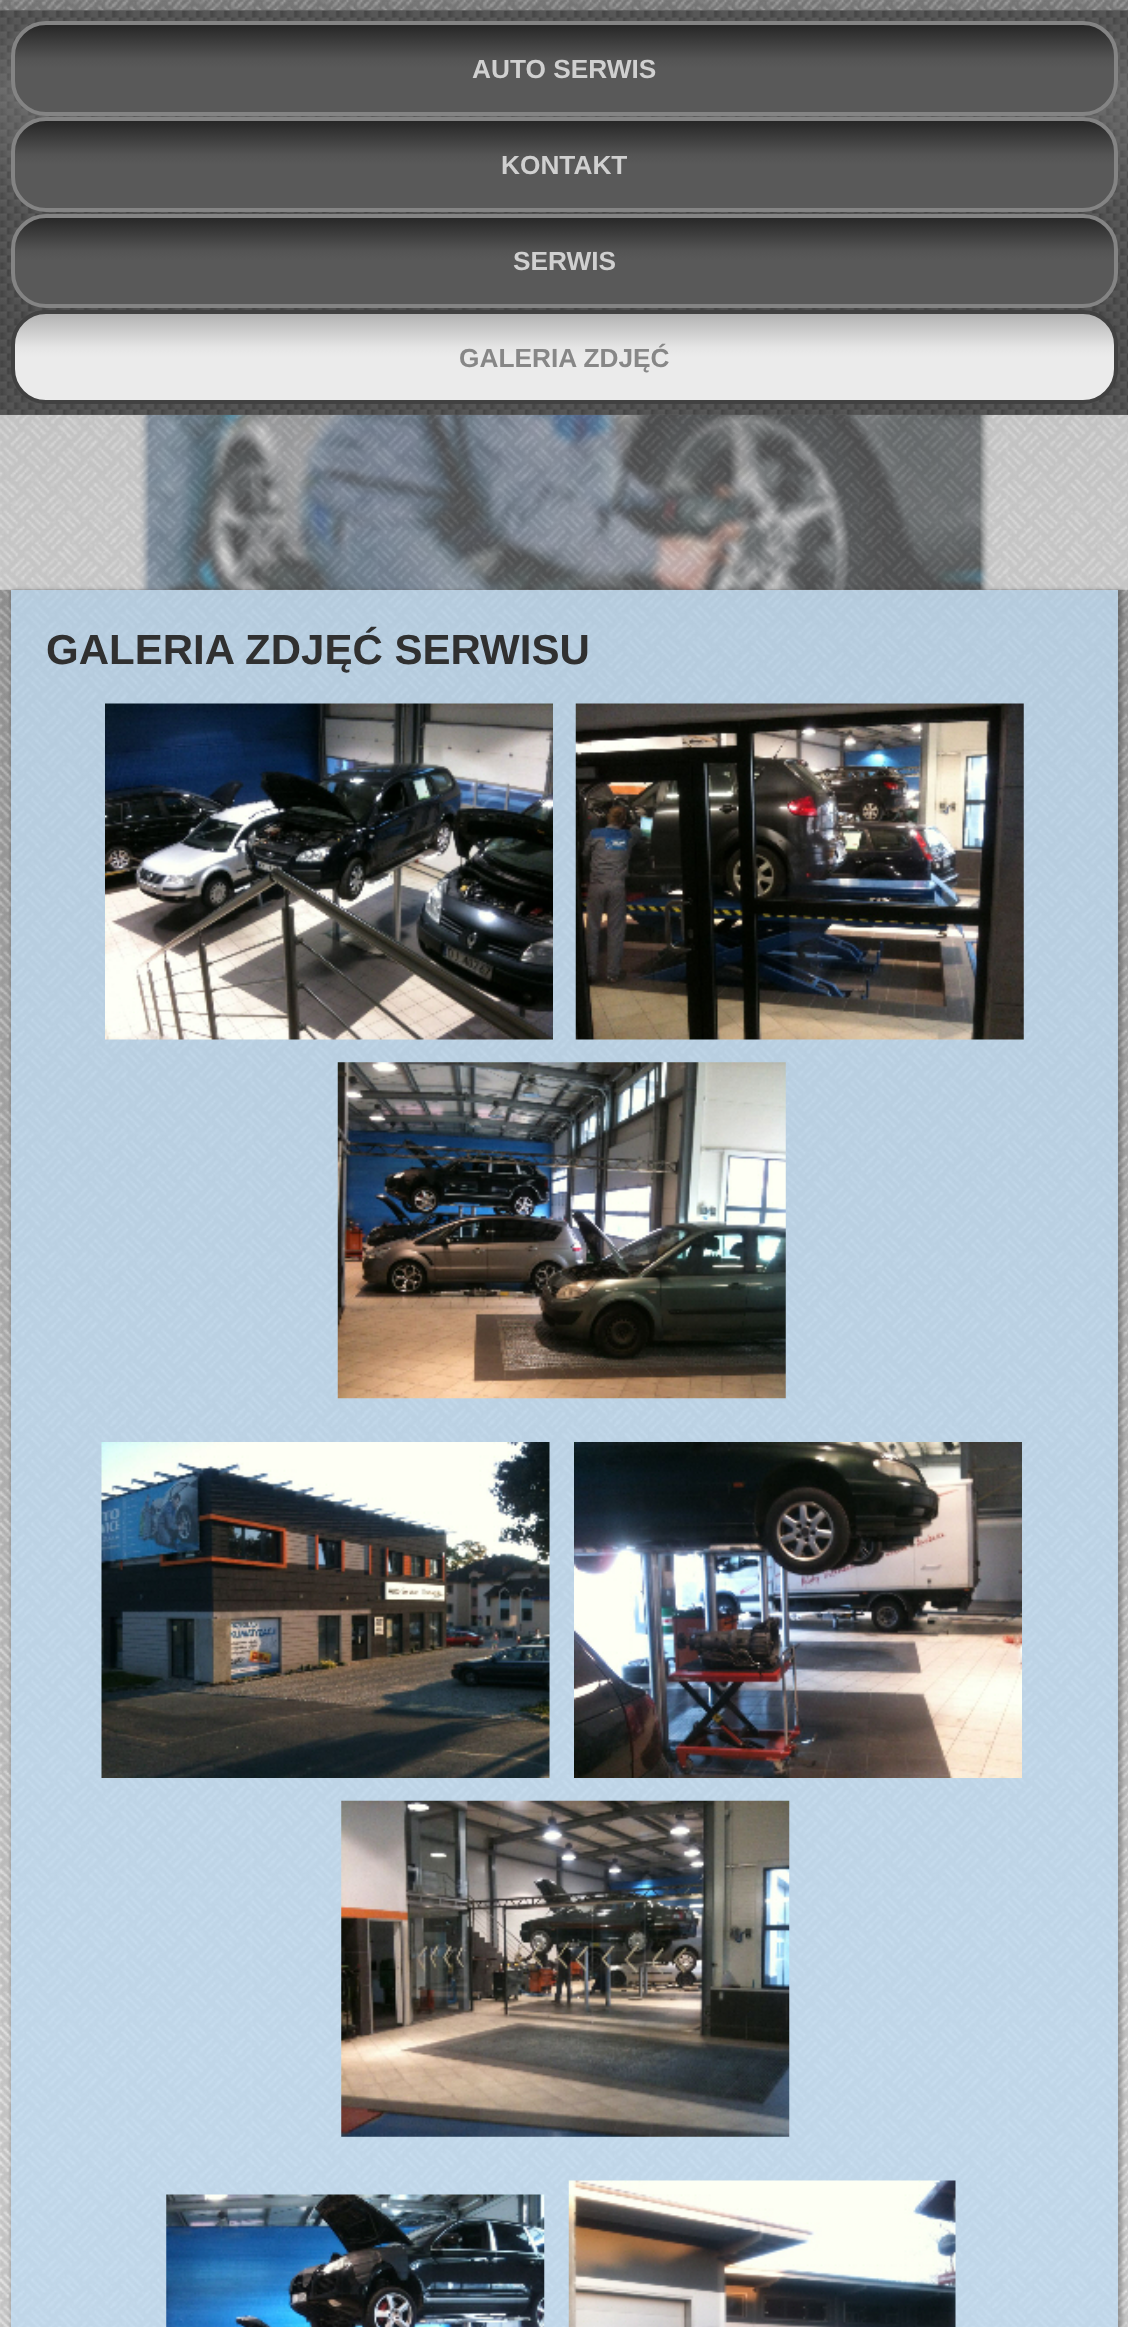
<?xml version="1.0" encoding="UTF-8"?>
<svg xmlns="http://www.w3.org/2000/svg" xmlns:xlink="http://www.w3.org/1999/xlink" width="1128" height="2327">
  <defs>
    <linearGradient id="g1" gradientUnits="userSpaceOnUse" x1="564" y1="21" x2="564" y2="116"><stop offset="0" stop-color="#212121" /><stop offset="0.4" stop-color="#545454" /><stop offset="0.5" stop-color="#595959" /><stop offset="1" stop-color="#595959" /></linearGradient>
    <linearGradient id="g2" gradientUnits="userSpaceOnUse" x1="564" y1="117" x2="564" y2="212"><stop offset="0" stop-color="#212121" /><stop offset="0.4" stop-color="#545454" /><stop offset="0.5" stop-color="#595959" /><stop offset="1" stop-color="#595959" /></linearGradient>
    <linearGradient id="g3" gradientUnits="userSpaceOnUse" x1="564" y1="213" x2="564" y2="308"><stop offset="0" stop-color="#212121" /><stop offset="0.4" stop-color="#545454" /><stop offset="0.5" stop-color="#595959" /><stop offset="1" stop-color="#595959" /></linearGradient>
    <linearGradient id="g4" gradientUnits="userSpaceOnUse" x1="564" y1="310" x2="564" y2="404"><stop offset="0" stop-color="#adadad" /><stop offset="0.4" stop-color="#e5e5e5" /><stop offset="0.5" stop-color="#ebebeb" /><stop offset="1" stop-color="#ebebeb" /></linearGradient>
    <clipPath id="clip1"><path d="M 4 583 h 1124 v 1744 h -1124 z m 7 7 h 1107 v 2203 h -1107 z" clip-rule="evenodd" /></clipPath>
  </defs>
  <rect width="100%" height="100%" fill="#ffffff" />
  <image x="0" y="0" width="1128" height="2327" xlink:href="image1.png" />
  <image x="0" y="414" width="1128" height="176" xlink:href="image3.png" />
  <image x="0" y="10" width="1128" height="405" xlink:href="image2.png" />
  <rect x="13" y="23" width="1103" height="91" rx="33" fill="url(#g1)" stroke="#848484" stroke-width="4" />
  <rect x="13" y="119" width="1103" height="91" rx="33" fill="url(#g2)" stroke="#848484" stroke-width="4" />
  <rect x="13" y="216" width="1103" height="90" rx="33" fill="url(#g3)" stroke="#848484" stroke-width="4" />
  <rect x="13" y="312" width="1103" height="90" rx="33" fill="url(#g4)" stroke="#414141" stroke-width="4" />
  <g clip-path="url(#clip1)">
    <rect x="11" y="590" width="1111" height="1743" fill="#000000" fill-opacity="0.26" filter="blur(2px)" />
  </g>
  <rect x="11" y="590" width="1107" height="1737" fill="#bfdbf1" fill-opacity="0.8" />
  <image x="105" y="703" width="448" height="337" xlink:href="image4.png" />
  <image x="575" y="703" width="449" height="337" xlink:href="image5.png" />
  <image x="337" y="1062" width="449" height="337" xlink:href="image6.png" />
  <image x="101" y="1442" width="449" height="336" xlink:href="image7.png" />
  <image x="574" y="1442" width="448" height="336" xlink:href="image8.png" />
  <image x="341" y="1800" width="449" height="337" xlink:href="image9.png" />
  <image x="166" y="2194" width="379" height="133" xlink:href="image10.png" />
  <image x="568" y="2180" width="388" height="147" xlink:href="image11.png" />
  <text x="472" y="78" style="font-family: Liberation Sans; font-size: 26.25px; font-weight: bold; fill: #d0d0d0">AUTO SERWIS</text>
  <text x="501" y="174" style="font-family: Liberation Sans; font-size: 26.25px; font-weight: bold; fill: #d0d0d0">KONTAKT</text>
  <text x="513" y="270" style="font-family: Liberation Sans; font-size: 26.25px; font-weight: bold; fill: #d0d0d0">SERWIS</text>
  <text x="459" y="367" style="font-family: Liberation Sans; font-size: 26.25px; font-weight: bold; fill: #878787">GALERIA ZDJĘĆ</text>
  <text x="46" y="664" style="font-family: Liberation Sans; font-size: 42px; font-weight: bold; fill: #303030">GALERIA ZDJĘĆ SERWISU</text>
</svg>
